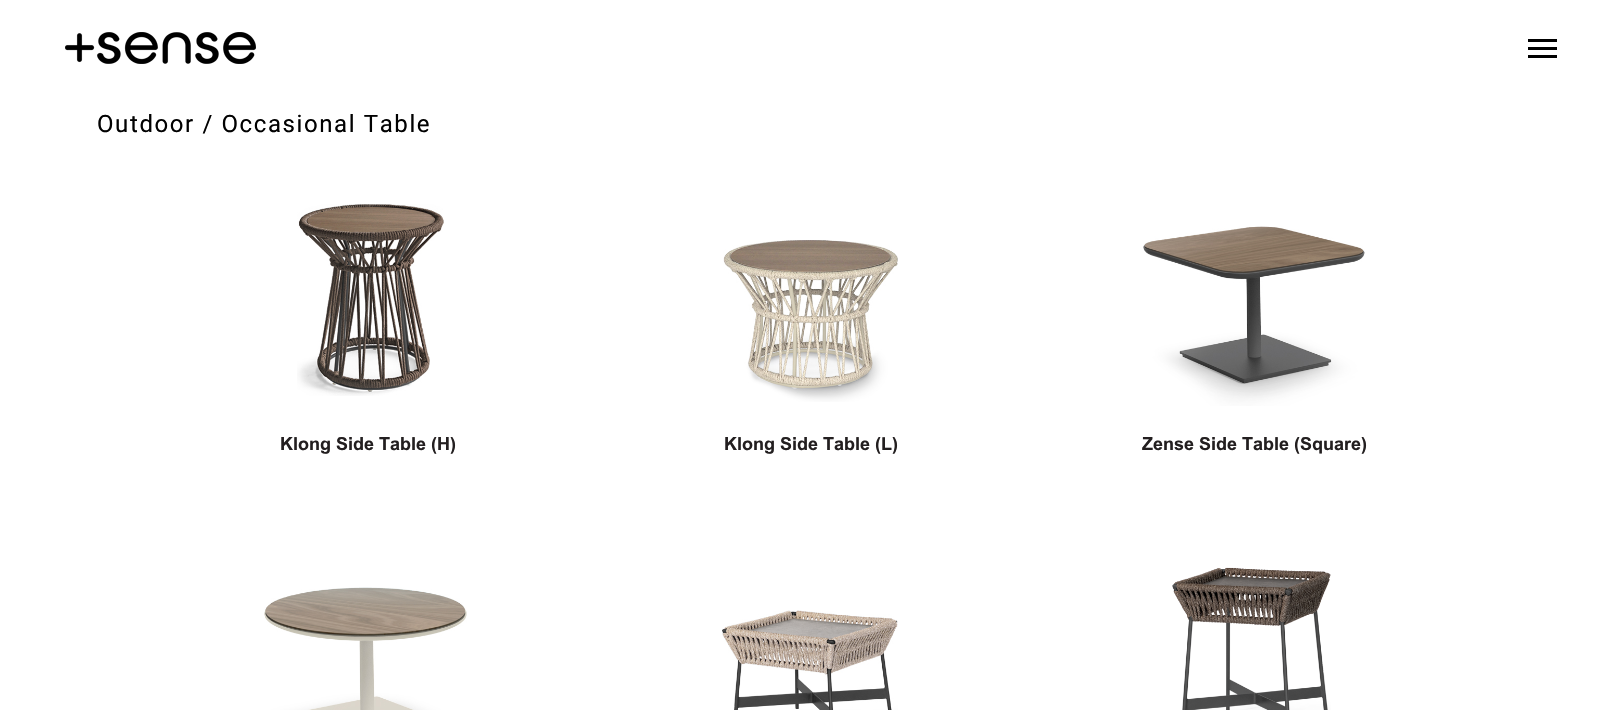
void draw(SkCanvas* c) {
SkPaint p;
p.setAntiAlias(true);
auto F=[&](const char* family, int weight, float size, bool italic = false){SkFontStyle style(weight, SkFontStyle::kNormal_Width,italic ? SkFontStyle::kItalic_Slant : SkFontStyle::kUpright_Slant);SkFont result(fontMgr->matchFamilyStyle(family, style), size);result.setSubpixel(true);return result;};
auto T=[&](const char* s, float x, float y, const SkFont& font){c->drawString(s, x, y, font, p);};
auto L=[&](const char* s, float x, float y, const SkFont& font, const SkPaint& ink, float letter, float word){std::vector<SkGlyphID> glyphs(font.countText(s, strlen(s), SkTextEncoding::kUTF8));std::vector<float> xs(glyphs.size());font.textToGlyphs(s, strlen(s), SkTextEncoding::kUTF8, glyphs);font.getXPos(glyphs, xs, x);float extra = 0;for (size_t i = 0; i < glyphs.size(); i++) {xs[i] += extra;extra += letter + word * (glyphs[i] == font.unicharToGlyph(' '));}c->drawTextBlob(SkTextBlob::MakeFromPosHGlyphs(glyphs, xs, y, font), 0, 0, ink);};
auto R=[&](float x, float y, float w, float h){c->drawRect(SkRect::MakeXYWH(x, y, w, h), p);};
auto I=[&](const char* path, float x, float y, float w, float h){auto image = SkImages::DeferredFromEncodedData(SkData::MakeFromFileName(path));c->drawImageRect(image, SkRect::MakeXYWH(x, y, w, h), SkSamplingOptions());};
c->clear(0xffffffff);
I("1.png",65,32,191,32);
p.setColor(0xff000000);
R(1528,39,29,3);
R(1528,47,29,3);
R(1528,55,29,3);
auto f1 = F("Roboto",400,24);
p.setColor(0xff010101);
L("Outdoor / Occasional Table",97,132,f1,p,1.6,0);
I("2.png",297,204,147,192);
auto f2 = F("Arial",700,18);
p.setColor(0xff231f20);
T("Klong Side Table (H)",280,450,f2);
I("3.png",723,240,175,162);
T("Klong Side Table (L)",724,450,f2);
I("4.png",1143,226,222,180);
T("Zense Side Table (Square)",1142,450,f2);
I("5.png",264,587,203,123);
I("6.png",722,610,176,100);
I("7.png",1172,567,159,143);
}
